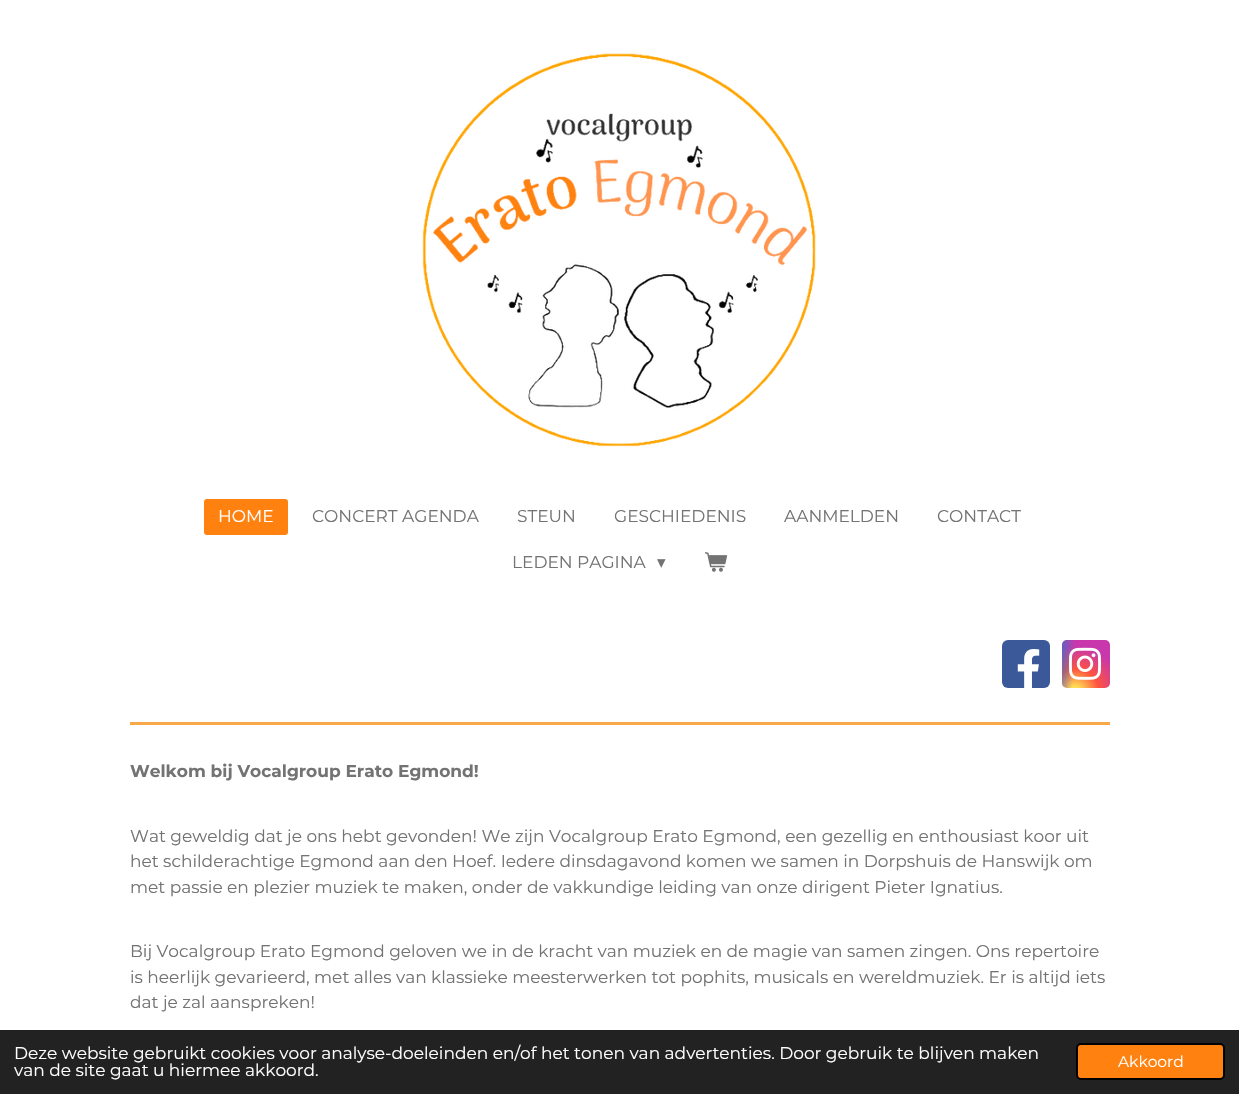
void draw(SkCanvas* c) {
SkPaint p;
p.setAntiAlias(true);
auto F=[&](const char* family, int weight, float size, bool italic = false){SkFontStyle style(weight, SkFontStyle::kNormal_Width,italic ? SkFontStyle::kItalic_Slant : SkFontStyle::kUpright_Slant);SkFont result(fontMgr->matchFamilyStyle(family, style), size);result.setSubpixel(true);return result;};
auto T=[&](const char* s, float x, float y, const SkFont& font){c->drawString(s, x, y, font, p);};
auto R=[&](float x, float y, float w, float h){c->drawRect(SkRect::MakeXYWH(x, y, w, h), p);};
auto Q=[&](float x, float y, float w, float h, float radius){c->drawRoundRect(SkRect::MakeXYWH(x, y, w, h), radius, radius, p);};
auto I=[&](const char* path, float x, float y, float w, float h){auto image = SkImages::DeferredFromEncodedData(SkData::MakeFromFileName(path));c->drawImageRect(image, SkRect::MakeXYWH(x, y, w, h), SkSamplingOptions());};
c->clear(0xffffffff);
I("1.png",422,52,394,395);
p.setColor(0xffff8210);
Q(204,499,84,36,3);
auto f1 = F("Montserrat",400,17);
p.setColor(0xffffffff);
T("HOME",218,522,f1);
p.setColor(0xff737373);
T("CONCERT AGENDA",312,522,f1);
T("STEUN",517,522,f1);
T("GESCHIEDENIS",614,522,f1);
T("AANMELDEN",784,522,f1);
T("CONTACT",937,522,f1);
T("LEDEN PAGINA",512,568,f1);
auto f2 = F("DejaVu Sans",400,17);
T("▾",657,568,f2);
I("2.png",705,552,23,20);
p.setColor(0xff3b5998);
Q(1002,640,48,48,6);
I("3.png",1017,649,23,39);
{
const SkColor colors[] = {0xffffdd55,0xffffdd55,0xffff543e,0xffc837ab};
const float stops[] = {0,.1,.5,1};
SkMatrix m = SkMatrix::Translate(1075,691).preScale(47,44);
p.setShader(SkGradientShader::MakeRadial({0, 0}, 1, colors, stops, 4, SkTileMode::kClamp, 0, &m));
p.setAlpha(255);
}
Q(1062,640,48,48,5);
{
const SkColor colors[] = {0xff3771c8,0xff3771c8,0x003771c8};
const float stops[] = {0,.13,1};
SkMatrix m = SkMatrix::Translate(1054,643).preScale(21,86);
p.setShader(SkGradientShader::MakeRadial({0, 0}, 1, colors, stops, 3, SkTileMode::kClamp, 0, &m));
p.setAlpha(255);
}
Q(1062,640,48,48,5);
I("4.png",1069,647,32,33);
p.setShader(nullptr);
p.setColor(0xfffaa94a);
R(130,722,980,3);
auto f3 = F("Montserrat",700,17);
p.setColor(0xff737373);
T("Welkom bij Vocalgroup Erato Egmond!",130,777,f3);
T("Wat geweldig dat je ons hebt gevonden! We zijn Vocalgroup Erato Egmond, een gezellig en enthousiast koor uit",130,842,f1);
T("het schilderachtige Egmond aan den Hoef. Iedere dinsdagavond komen we samen in Dorpshuis de Hanswijk om",130,867,f1);
T("met passie en plezier muziek te maken, onder de vakkundige leiding van onze dirigent Pieter Ignatius.",130,893,f1);
T("Bij Vocalgroup Erato Egmond geloven we in de kracht van muziek en de magie van samen zingen. Ons repertoire",130,957,f1);
T("is heerlijk gevarieerd, met alles van klassieke meesterwerken tot pophits, musicals en wereldmuziek. Er is altijd iets",130,983,f1);
T("dat je zal aanspreken!",130,1008,f1);
p.setColor(0xff222222);
R(0,1030,1239,64);
p.setColor(0xffffffff);
T("Deze website gebruikt cookies voor analyse-doeleinden en/of het tonen van advertenties. Door gebruik te blijven maken",14,1059,f1);
T("van de site gaat u hiermee akkoord.",14,1076,f1);
p.setColor(0xffff8210);
c->drawRoundRect(SkRect::MakeXYWH(1077,1044,147,35),4,4,p);
p.setStroke(true);
p.setStrokeWidth(2);
p.setColor(0xff000000);
c->drawRoundRect(SkRect::MakeXYWH(1077,1044,147,35),4,4,p);
auto f4 = F("Montserrat",400,15.5);
p.setStroke(false);
p.setColor(0xffffffff);
T("Akkoord",1118,1067,f4);
}
